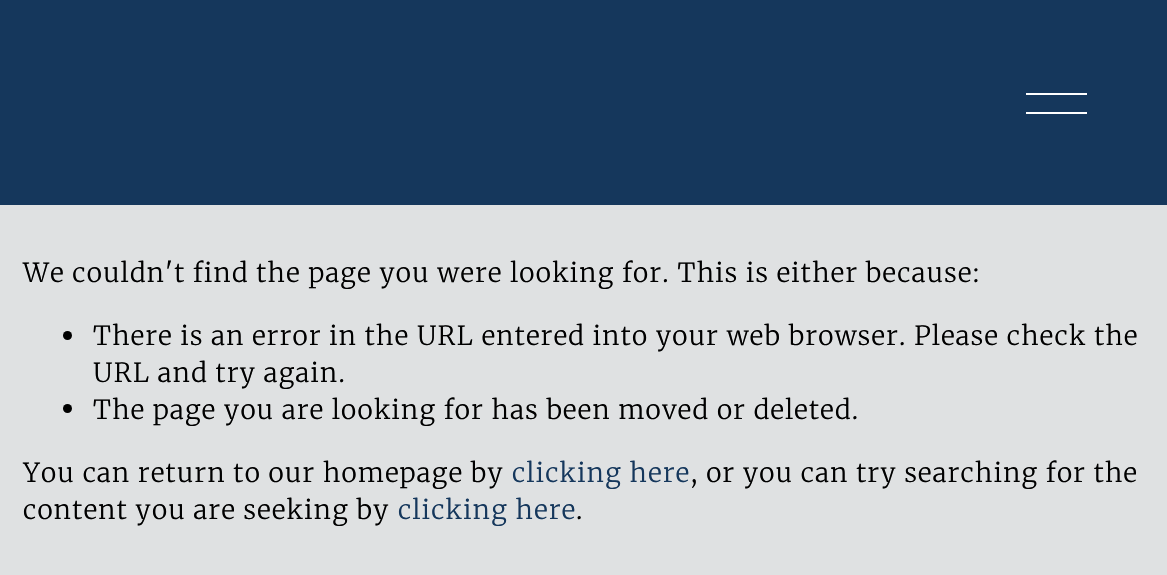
void draw(SkCanvas* c) {
SkPaint p;
p.setAntiAlias(true);
auto F=[&](const char* family, int weight, float size, bool italic = false){SkFontStyle style(weight, SkFontStyle::kNormal_Width,italic ? SkFontStyle::kItalic_Slant : SkFontStyle::kUpright_Slant);SkFont result(fontMgr->matchFamilyStyle(family, style), size);result.setSubpixel(true);return result;};
auto L=[&](const char* s, float x, float y, const SkFont& font, const SkPaint& ink, float letter, float word){std::vector<SkGlyphID> glyphs(font.countText(s, strlen(s), SkTextEncoding::kUTF8));std::vector<float> xs(glyphs.size());font.textToGlyphs(s, strlen(s), SkTextEncoding::kUTF8, glyphs);font.getXPos(glyphs, xs, x);float extra = 0;for (size_t i = 0; i < glyphs.size(); i++) {xs[i] += extra;extra += letter + word * (glyphs[i] == font.unicharToGlyph(' '));}c->drawTextBlob(SkTextBlob::MakeFromPosHGlyphs(glyphs, xs, y, font), 0, 0, ink);};
auto R=[&](float x, float y, float w, float h){c->drawRect(SkRect::MakeXYWH(x, y, w, h), p);};
c->clear(0xffdfe1e2);
p.setColor(0xff15375c);
R(0,0,1167,205);
p.setColor(0xffffffff);
R(1026,93,61,2);
R(1026,112,61,2);
auto f1 = F("Merriweather",300,26.25);
p.setColor(0xff000000);
L("We couldn't find the page you were looking for. This is either because:",23,282,f1,p,1.3,0);
c->drawCircle(67.5,335.5,4.5,p);
L("There is an error in the URL entered into your web browser. Please check the",93,345,f1,p,1.3,0);
L("URL and try again.",93,382,f1,p,1.3,0);
c->drawCircle(67.5,408.5,4.5,p);
L("The page you are looking for has been moved or deleted.",93,419,f1,p,1.3,0);
L("You can return to our homepage by",23,482,f1,p,1.3,0);
p.setColor(0xff15375c);
L("clicking here",512,482,f1,p,1.3,0);
p.setColor(0xff000000);
L(", or you can try searching for the",691,482,f1,p,1.3,0);
L("content you are seeking by",23,519,f1,p,1.3,0);
p.setColor(0xff15375c);
L("clicking here",398,519,f1,p,1.3,0);
p.setColor(0xff000000);
L(".",576,519,f1,p,1.3,0);
}
